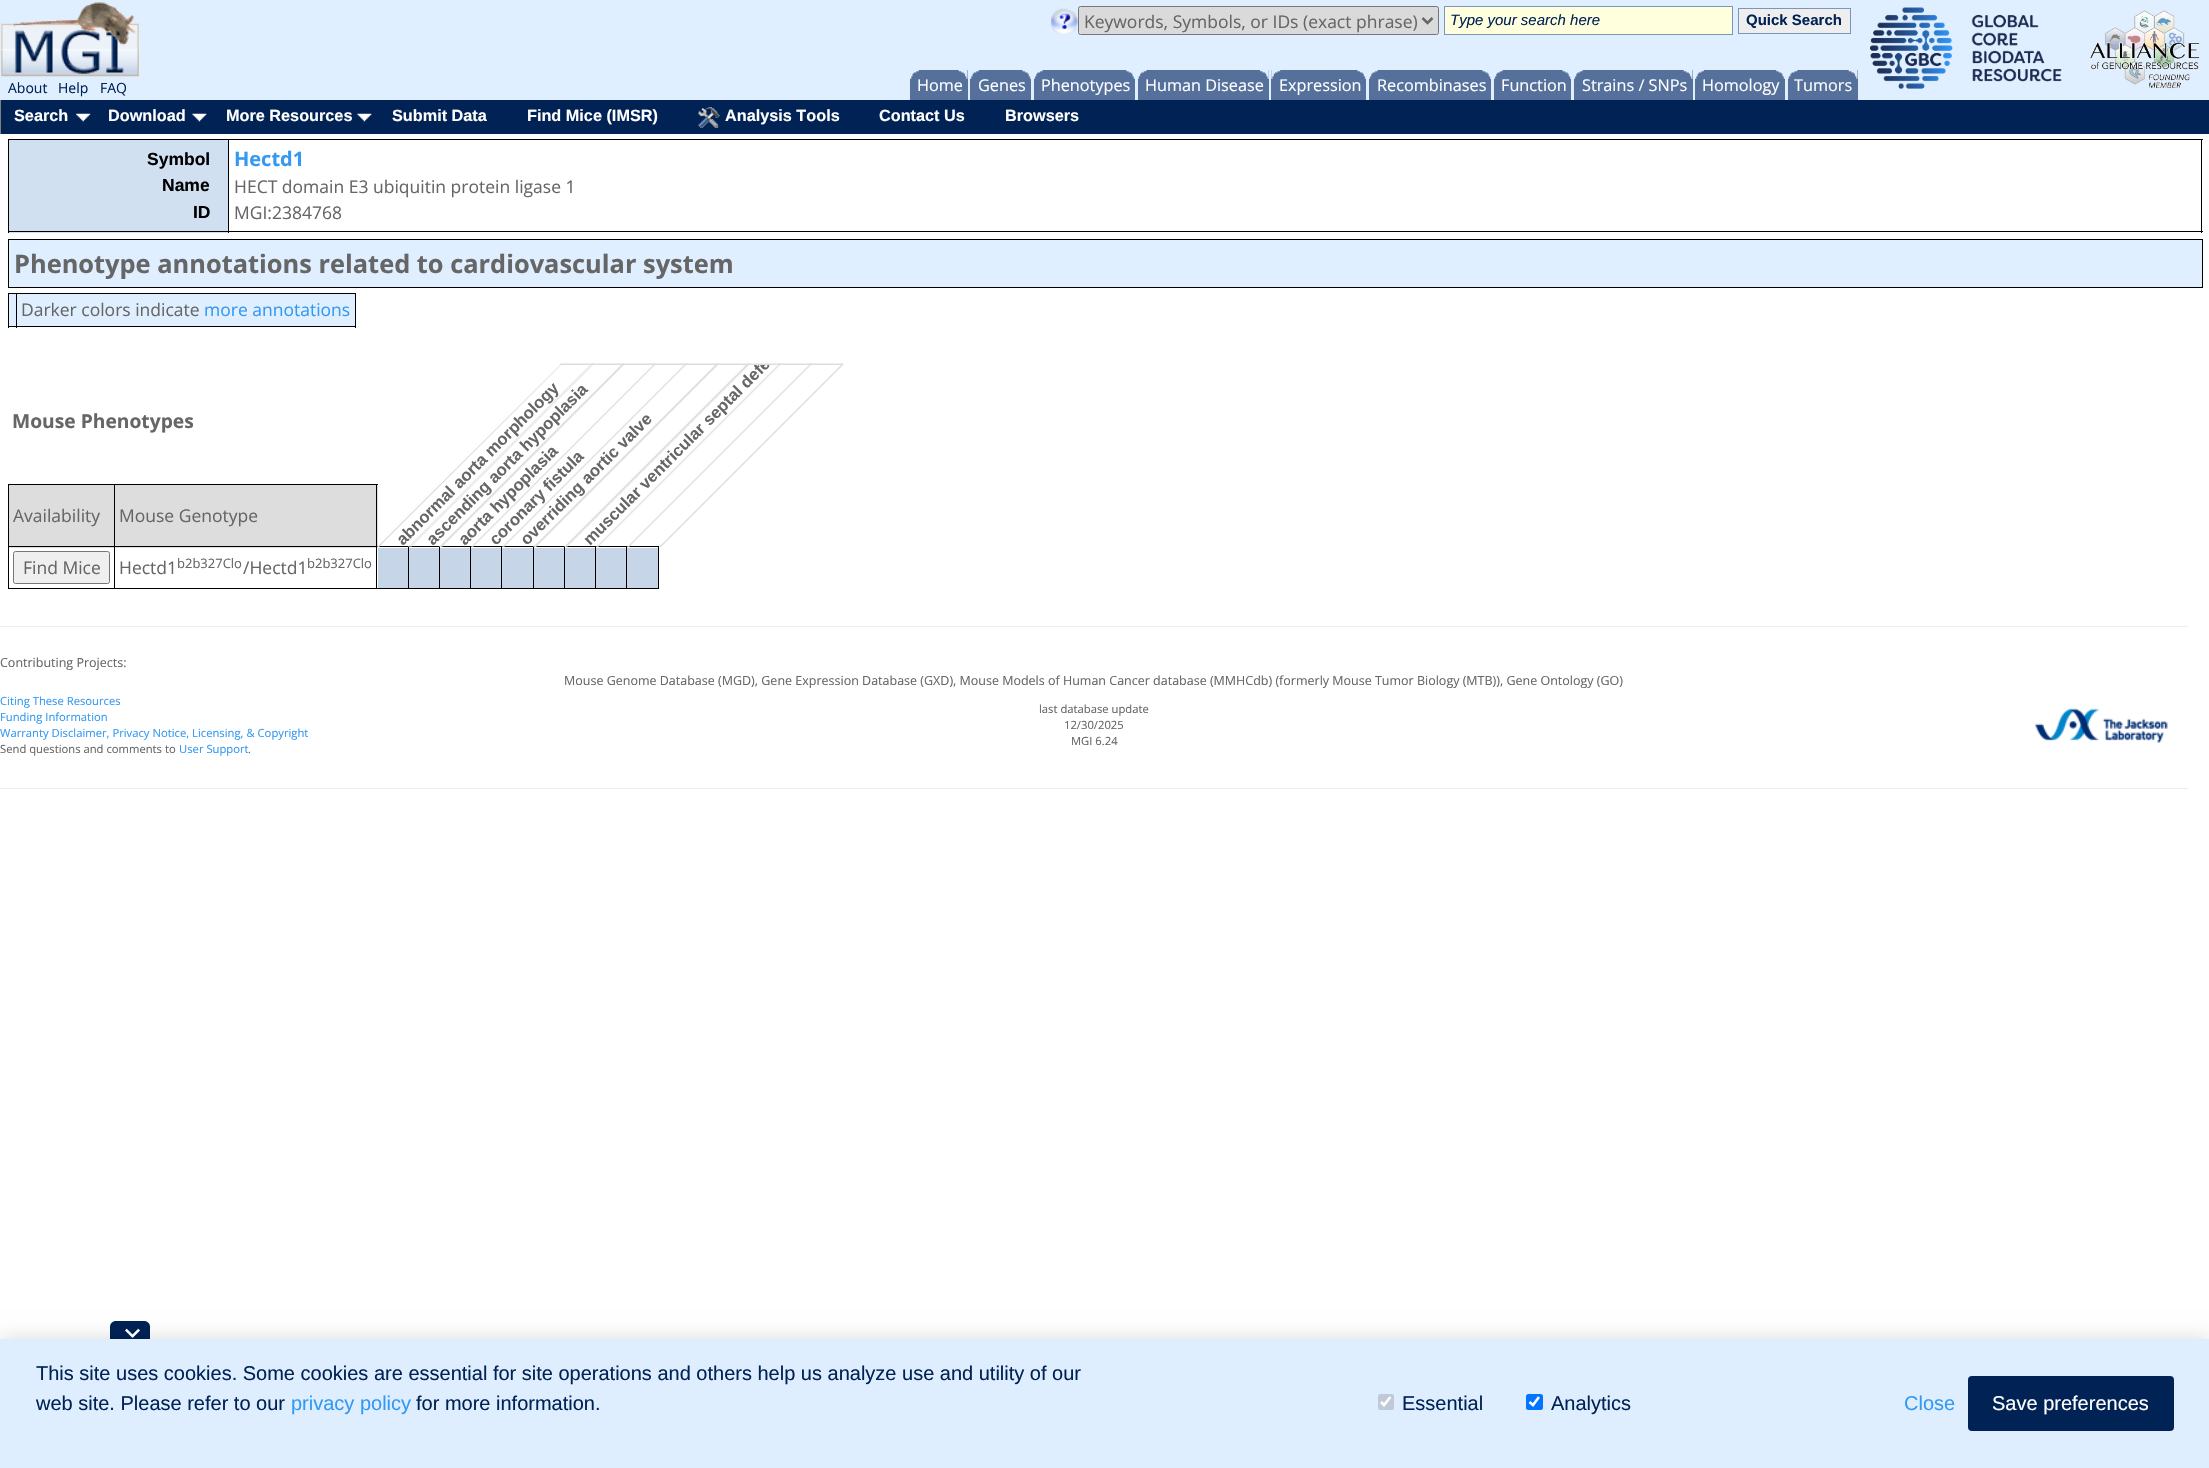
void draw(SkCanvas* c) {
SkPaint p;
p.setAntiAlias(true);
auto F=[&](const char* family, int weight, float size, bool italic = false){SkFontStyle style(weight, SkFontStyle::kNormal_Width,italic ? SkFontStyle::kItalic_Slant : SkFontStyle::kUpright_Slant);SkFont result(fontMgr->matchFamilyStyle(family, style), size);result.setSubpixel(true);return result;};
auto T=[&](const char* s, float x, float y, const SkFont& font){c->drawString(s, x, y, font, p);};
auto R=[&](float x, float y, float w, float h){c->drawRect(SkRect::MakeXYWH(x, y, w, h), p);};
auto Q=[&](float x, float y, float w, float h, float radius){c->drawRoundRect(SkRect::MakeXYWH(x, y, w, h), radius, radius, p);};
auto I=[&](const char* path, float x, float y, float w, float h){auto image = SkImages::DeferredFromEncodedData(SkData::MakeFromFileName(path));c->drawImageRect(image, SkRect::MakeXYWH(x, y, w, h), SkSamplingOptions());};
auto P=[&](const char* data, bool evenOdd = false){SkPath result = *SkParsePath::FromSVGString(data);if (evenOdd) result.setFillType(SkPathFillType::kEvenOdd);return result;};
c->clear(0xffffffff);
p.setColor(0xffdfefff);
R(0,0,2209,100);
I("1.png",1051,8,27,26);
p.setColor(0xffdadada);
c->drawRoundRect(SkRect::MakeXYWH(1078.5,6.5,360,28),2,2,p);
p.setStroke(true);
p.setStrokeWidth(1);
p.setColor(0xff767676);
c->drawRoundRect(SkRect::MakeXYWH(1078.5,6.5,360,28),2,2,p);
p.setStrokeWidth(2.5);
p.setColor(0xff666666);
c->drawPath(P("M1422.5 18l5 5l5-5"),p);
auto f1 = F("Open Sans",400,17.5);
p.setStroke(false);
T("Keywords, Symbols, or IDs (exact phrase)",1084,28,f1);
p.setColor(0xffffffdd);
c->drawRect(SkRect::MakeXYWH(1444.5,6.5,288,28),p);
p.setStroke(true);
p.setStrokeWidth(1);
p.setColor(0xff7d95b9);
c->drawRect(SkRect::MakeXYWH(1444.5,6.5,288,28),p);
auto f2 = F("Liberation Sans",400,15,true);
p.setStroke(false);
p.setColor(0xff002255);
T("Type your search here",1450,25,f2);
p.setColor(0xffeeeeee);
c->drawRect(SkRect::MakeXYWH(1738.5,8.5,112,25),p);
p.setStroke(true);
p.setColor(0xff7d95b9);
c->drawRect(SkRect::MakeXYWH(1738.5,8.5,112,25),p);
auto f3 = F("Liberation Sans",700,15);
p.setStroke(false);
p.setColor(0xff002255);
T("Quick Search",1746,25,f3);
I("2.png",1870,7,192,82);
I("3.png",2089,10,111,79);
I("4.png",1,2,138,75);
auto f4 = F("Open Sans",400,14);
T("About",8,93,f4);
T("Help",58,93,f4);
T("FAQ",100,93,f4);
p.setColor(0xff54709b);
R(910,70,58,30);
I("5.png",910,70,9,9);
I("6.png",958,70,10,9);
auto f5 = F("Open Sans",400,16.25);
p.setColor(0xffffffff);
T("Home",917,91,f5);
p.setColor(0xff54709b);
R(970,70,61,30);
I("7.png",970,70,9,9);
I("8.png",1022,70,9,9);
p.setColor(0xffffffff);
T("Genes",978,91,f5);
p.setColor(0xff54709b);
R(1034,70,101,30);
I("9.png",1034,70,9,9);
I("10.png",1126,70,9,9);
p.setColor(0xffffffff);
T("Phenotypes",1041,91,f5);
p.setColor(0xff54709b);
R(1138,70,131,30);
I("11.png",1138,70,9,9);
I("12.png",1259,70,10,9);
p.setColor(0xffffffff);
T("Human Disease",1145,91,f5);
p.setColor(0xff54709b);
R(1271,70,95,30);
I("13.png",1271,70,10,9);
I("14.png",1357,70,9,9);
p.setColor(0xffffffff);
T("Expression",1279,91,f5);
p.setColor(0xff54709b);
R(1369,70,122,30);
I("15.png",1369,70,9,9);
I("16.png",1482,70,9,9);
p.setColor(0xffffffff);
T("Recombinases",1377,91,f5);
p.setColor(0xff54709b);
R(1494,70,77,30);
I("9.png",1494,70,9,9);
I("14.png",1562,70,9,9);
p.setColor(0xffffffff);
T("Function",1501,91,f5);
p.setColor(0xff54709b);
R(1574,70,119,30);
I("9.png",1574,70,9,9);
I("6.png",1683,70,10,9);
p.setColor(0xffffffff);
T("Strains / SNPs",1582,91,f5);
p.setColor(0xff54709b);
R(1695,70,90,30);
I("7.png",1695,70,9,9);
I("17.png",1776,70,9,9);
p.setColor(0xffffffff);
T("Homology",1702,91,f5);
p.setColor(0xff54709b);
R(1788,70,70,30);
I("18.png",1788,70,10,9);
I("6.png",1848,70,10,9);
p.setColor(0xffffffff);
T("Tumors",1794,91,f5);
p.setColor(0xff002255);
R(1,100,2208,34);
p.setColor(0xff808080);
R(0,100,1,34);
I("19.png",76,113,15,9);
auto f6 = F("Liberation Sans",700,16.25);
p.setColor(0xffffffff);
T("Search",14,121,f6);
I("20.png",192,113,15,9);
T("Download",108,121,f6);
I("21.png",357,113,15,9);
T("More Resources",226,121,f6);
T("Submit Data",392,121,f6);
T("Find Mice (IMSR)",527,121,f6);
I("22.png",698,107,22,21);
T("Analysis Tools",725,121,f6);
T("Contact Us",879,121,f6);
T("Browsers",1005,121,f6);
p.setColor(0xff000000);
R(8,139,2195,1);
R(2201,139,1,94);
p.setColor(0xffd0e0f0);
R(9,140,219,93);
p.setColor(0xff000000);
R(8,231,2195,1);
R(8,139,1,94);
auto f7 = F("Liberation Sans",700,17.5);
p.setColor(0xff000001);
T("Symbol",147,165,f7);
T("Name",162,191,f7);
T("ID",193,218,f7);
p.setColor(0xff000000);
R(228,139,1,94);
auto f8 = F("Open Sans",700,20);
p.setColor(0xff3399f3);
T("Hectd1",234,166,f8);
p.setColor(0xff666666);
T("HECT domain E3 ubiquitin protein ligase 1",234,193,f1);
T("MGI:2384768",234,219,f1);
p.setColor(0xffdfefff);
c->drawRect(SkRect::MakeXYWH(8.5,239.5,2194,48),p);
p.setStroke(true);
p.setColor(0xff000000);
c->drawRect(SkRect::MakeXYWH(8.5,239.5,2194,48),p);
auto f9 = F("Open Sans",700,25.4);
p.setStroke(false);
p.setColor(0xff666666);
T("Phenotype annotations related to cardiovascular system",14,273,f9);
p.setColor(0xffdfefff);
R(9,294,346,32);
p.setColor(0xff000000);
R(16,293,340,1);
R(355,293,1,35);
R(16,326,340,1);
R(16,293,1,35);
R(8,293,10,1);
R(8,326,10,1);
R(8,293,1,35);
p.setColor(0xff666666);
T("Darker colors indicate",21,316,f1);
p.setColor(0xff3399f3);
T("more annotations",204,316,f1);
p.setColor(0xffdddddd);
c->drawPath(P("M560.5 363.5h34l-1.5 1.5h-33.5z"),p);
p.setColor(0xff000000);
R(626,546,33,1);
p.setColor(0xffc6d6e8);
R(596,548,62,40);
p.setColor(0xff000000);
R(658,546,1,43);
R(626,588,33,1);
R(626,546,1,43);
R(595,546,33,1);
R(595,588,33,1);
R(595,546,1,43);
R(564,546,32,1);
R(564,588,32,1);
R(564,546,1,43);
R(533,546,32,1);
R(533,588,32,1);
R(533,546,1,43);
R(501,546,33,1);
p.setColor(0xffc6d6e8);
R(471,548,62,40);
p.setColor(0xff000000);
R(501,588,33,1);
R(501,546,1,43);
R(470,546,33,1);
R(470,588,33,1);
R(470,546,1,43);
R(439,546,32,1);
R(439,588,32,1);
R(439,546,1,43);
R(408,546,32,1);
p.setColor(0xffdddddd);
c->drawPath(P("M593 364h1l-183 183h-1z"),p);
c->drawPath(P("M591 363.5h34l-1.5 1.5h-33.5z"),p);
R(115,485,263,63);
p.setColor(0xff000000);
R(114,484,264,1);
R(408,588,32,1);
R(408,546,1,43);
R(376,546,33,1);
R(376,588,33,1);
R(376,546,1,43);
R(114,546,264,1);
p.setColor(0xffdddddd);
c->drawPath(P("M561 364h1l-183 183h-2z"),p);
auto f10 = F("Liberation Sans",700,16.7);
p.setColor(0xff666666);
c->save();
c->rotate(-45,403,546);
T("abnormal aorta morphology",403,546,f10);
c->restore();
p.setColor(0xffdddddd);
c->drawPath(P("M624 364h1l-183 183h-1z"),p);
c->drawPath(P("M622.5 363.5h33.5l-1 1.5h-34z"),p);
c->drawPath(P("M591 364h1l-183 183h-1z"),p);
p.setColor(0xff666666);
c->save();
c->rotate(-45,433,546);
T("ascending aorta hypoplasia",433,546,f10);
c->restore();
p.setColor(0xffdddddd);
c->drawPath(P("M655 364h1l-183 183h-1z"),p);
c->drawPath(P("M653.5 363.5h34l-1.5 1.5h-33.5z"),p);
c->drawPath(P("M622 364h2l-183 183h-2z"),p);
p.setColor(0xff666666);
c->save();
c->rotate(-45,465,546);
T("aorta hypoplasia",465,546,f10);
c->restore();
p.setColor(0xffdddddd);
c->drawPath(P("M686 364h1l-183 183h-1z"),p);
c->drawPath(P("M685 363.5h33.5l-1 1.5h-34z"),p);
c->drawPath(P("M654 364h1l-183 183h-1z"),p);
p.setColor(0xff666666);
c->save();
c->rotate(-45,496,546);
T("coronary fistula",496,546,f10);
c->restore();
p.setColor(0xffdddddd);
c->drawPath(P("M717 364h2l-183 183h-2z"),p);
c->drawPath(P("M716 363.5h34l-1.5 1.5h-33.5z"),p);
c->drawPath(P("M685 364h1l-183 183h-1z"),p);
p.setColor(0xff666666);
c->save();
c->rotate(-45,527,546);
T("overriding aortic valve",527,546,f10);
c->restore();
p.setColor(0xffdddddd);
c->drawPath(P("M749 364h1l-183 183h-1z"),p);
c->drawPath(P("M716 364h1l-183 183h-1z"),p);
c->drawPath(P("M747.5 363.5h33.5l-1 1.5h-34z"),p);
c->drawPath(P("M780 364h1l-183 183h-1z"),p);
c->drawPath(P("M778.5 363.5h34l-1.5 1.5h-33.5z"),p);
c->drawPath(P("M747 364h2l-183 183h-2z"),p);
c->save();
c->clipPath(P("M747.5 365h31l-181.5 182h-31.5z"),true);
p.setColor(0xff666666);
c->save();
c->rotate(-45,590,546);
T("muscular ventricular septal defect",590,546,f10);
c->restore();
c->restore();
p.setColor(0xffdddddd);
c->drawPath(P("M811 364h1l-183 183h-1z"),p);
c->drawPath(P("M779 364h1l-183 183h-1z"),p);
c->drawPath(P("M810 363.5h33.5l-1 1.5h-34z"),p);
c->drawPath(P("M842 364h2l-183 183h-2z"),p);
c->drawPath(P("M810 364h1l-183 183h-1z"),p);
auto f11 = F("Open Sans",700,19.25);
p.setColor(0xff666666);
T("Mouse Phenotypes",12,428,f11);
p.setColor(0xffdddddd);
R(9,485,105,63);
p.setColor(0xff000000);
R(114,588,264,1);
R(114,546,1,43);
R(8,546,107,1);
R(114,484,1,64);
R(8,484,107,1);
R(8,588,107,1);
R(8,546,1,43);
R(8,484,1,64);
p.setColor(0xff666666);
T("Availability",13,522,f1);
p.setColor(0xff000000);
R(376,484,1,64);
p.setColor(0xff666666);
T("Mouse Genotype",119,522,f1);
p.setColor(0xffc6d6e8);
R(378,548,30,40);
R(409,548,30,40);
R(440,548,30,40);
R(534,548,30,40);
R(565,548,30,40);
p.setColor(0xffefefef);
c->drawRoundRect(SkRect::MakeXYWH(13.5,551.5,96,32),2,2,p);
p.setStroke(true);
p.setColor(0xff767676);
c->drawRoundRect(SkRect::MakeXYWH(13.5,551.5,96,32),2,2,p);
p.setStroke(false);
p.setColor(0xff666666);
T("Find Mice",23,574,f1);
T("Hectd1",119,574,f1);
auto f12 = F("Open Sans",400,13);
T("b2b327Clo",177,568,f12);
T("/Hectd1",243,574,f1);
T("b2b327Clo",307,568,f12);
p.setColor(0xffeeeeee);
R(0,626,2188,1);
auto f13 = F("Open Sans",400,12.5);
p.setColor(0xff666666);
T("Contributing Projects:",0,667,f13);
T("Mouse Genome Database (MGD), Gene Expression Database (GXD), Mouse Models of Human Cancer database (MMHCdb) (formerly Mouse Tumor Biology (MTB)), Gene Ontology (GO)",564,685,f13);
auto f14 = F("Open Sans",400,11.25);
p.setColor(0xff3399f3);
T("Citing These Resources",0,705,f14);
T("Funding Information",0,721,f14);
T("Warranty Disclaimer, Privacy Notice, Licensing, & Copyright",0,737,f14);
p.setColor(0xff666666);
T("Send questions and comments to",0,753,f14);
p.setColor(0xff3399f3);
T("User Support",179,753,f14);
p.setColor(0xff666666);
T(".",248,753,f14);
T("last database update",1039,713,f14);
T("12/30/2025",1064,729,f14);
T("MGI 6.24",1071,745,f14);
I("23.png",2034,708,134,35);
p.setColor(0xffeeeeee);
R(0,788,2188,1);
p.setColor(0xff002255);
c->drawPath(P("M116 1321h28c3.5 0 6 2.5 6 6v12h-40v-12c0-3.5 2.5-6 6-6z"),p);
p.setColor(0x26000000);
p.setMaskFilter(SkMaskFilter::MakeBlur(kNormal_SkBlurStyle, 10));
c->drawRect(SkRect::MakeXYWH(0,1339,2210,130),p);
p.setMaskFilter(nullptr);
I("24.png",125,1328,15,10);
p.setColor(0xffdeeeff);
R(0,1339,2209,129);
auto f15 = F("Liberation Sans",400,20);
p.setColor(0xff002255);
T("This site uses cookies. Some cookies are essential for site operations and others help us analyze use and utility of our",36,1380,f15);
T("web site. Please refer to our",36,1410,f15);
p.setColor(0xff3399f3);
T("privacy policy",291,1410,f15);
p.setColor(0xff002255);
T("for more information.",416,1410,f15);
p.setColor(0xffbfcad6);
Q(1378,1394,16,16,2.5);
p.setStroke(true);
p.setStrokeWidth(2.6);
p.setColor(0xffffffff);
c->drawPath(P("M1381 1402l3 3l6.5-8"),p);
p.setStroke(false);
p.setColor(0xff002255);
T("Essential",1402,1410,f15);
p.setColor(0xff0075ff);
Q(1526,1394,17,16,2.5);
p.setStroke(true);
p.setColor(0xffffffff);
c->drawPath(P("M1529.5 1402l3.5 3l6-8"),p);
p.setStroke(false);
p.setColor(0xff002255);
T("Analytics",1551,1410,f15);
p.setColor(0xff3399f3);
T("Close",1904,1410,f15);
p.setColor(0xff002255);
Q(1968,1376,206,55,4);
p.setColor(0xffffffff);
T("Save preferences",1992,1410,f15);
}
